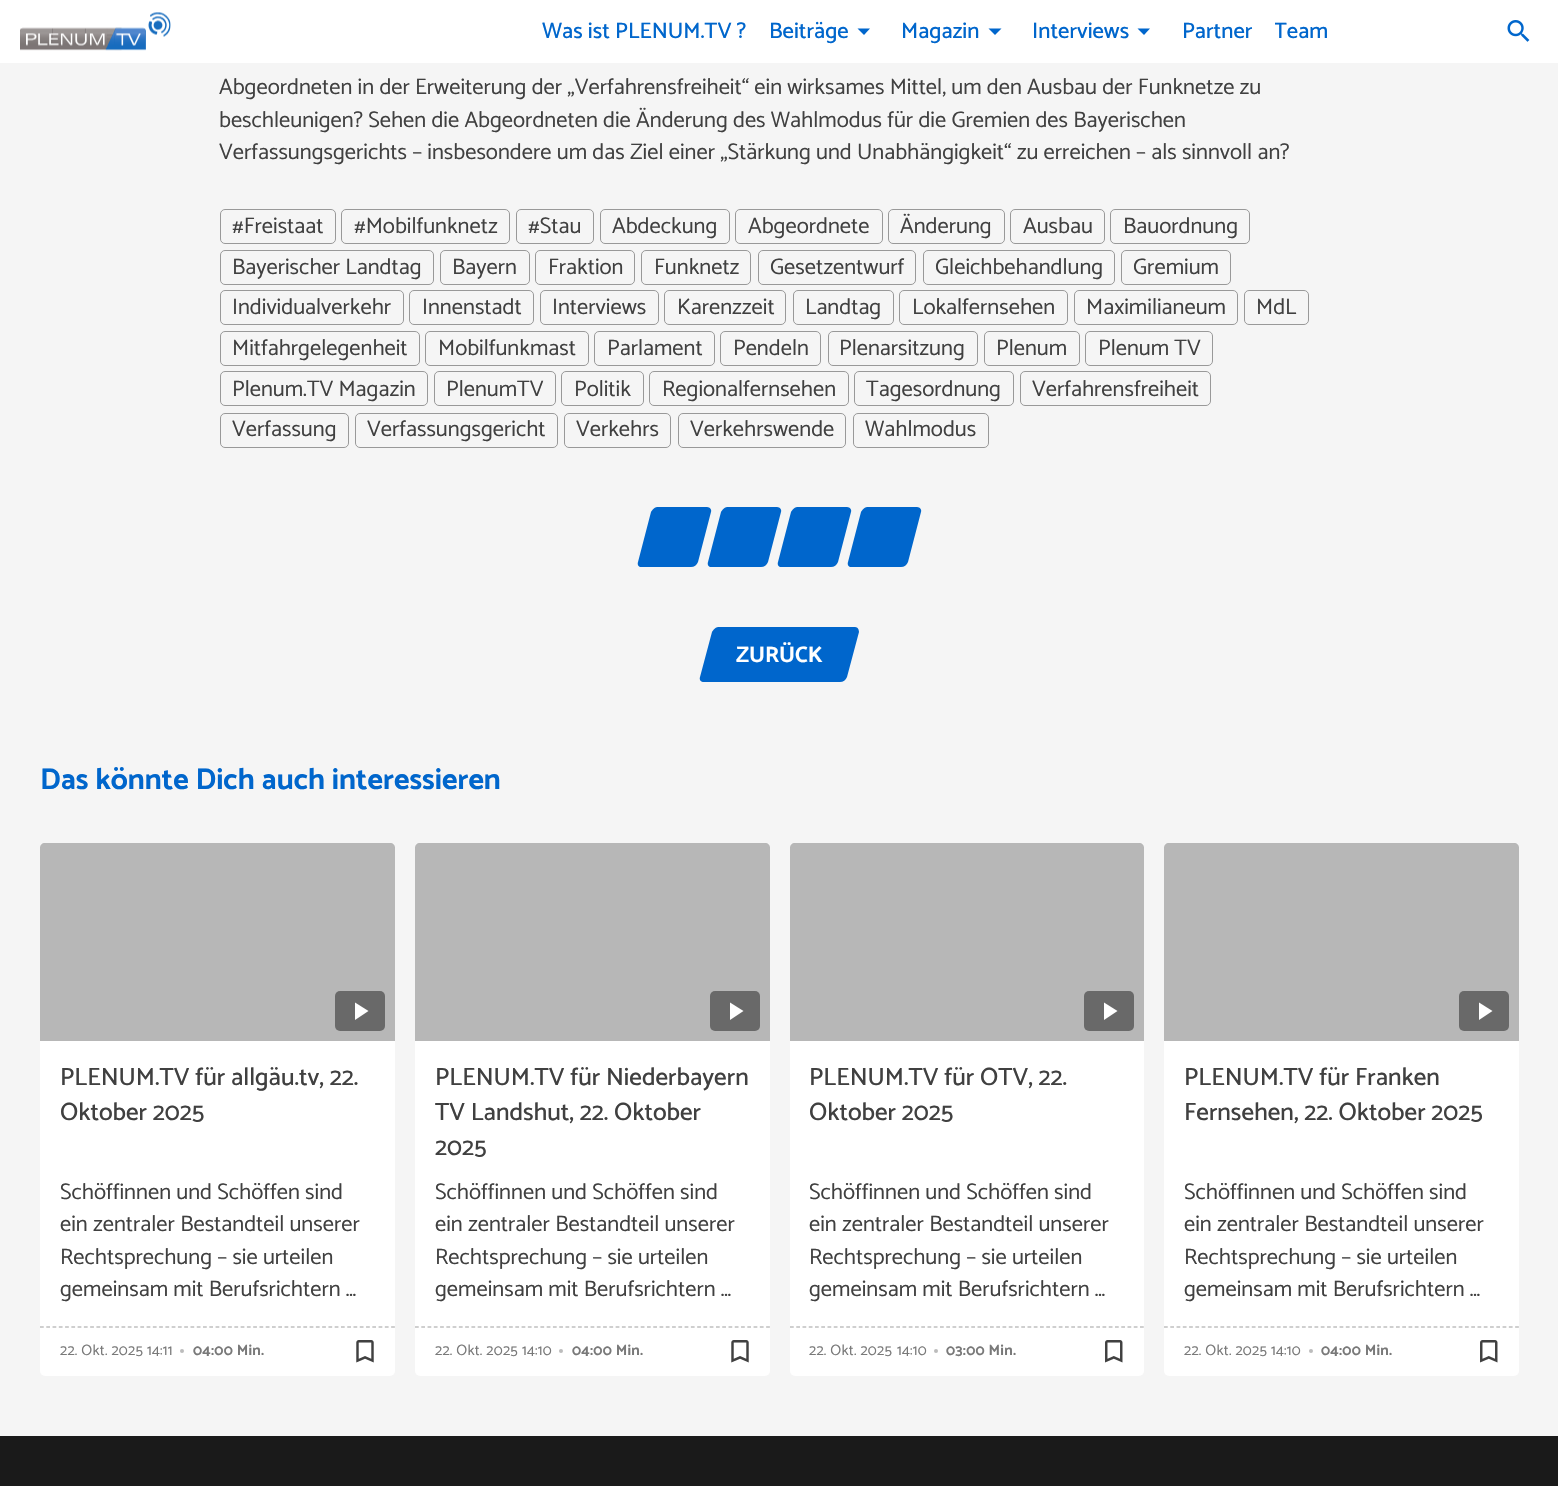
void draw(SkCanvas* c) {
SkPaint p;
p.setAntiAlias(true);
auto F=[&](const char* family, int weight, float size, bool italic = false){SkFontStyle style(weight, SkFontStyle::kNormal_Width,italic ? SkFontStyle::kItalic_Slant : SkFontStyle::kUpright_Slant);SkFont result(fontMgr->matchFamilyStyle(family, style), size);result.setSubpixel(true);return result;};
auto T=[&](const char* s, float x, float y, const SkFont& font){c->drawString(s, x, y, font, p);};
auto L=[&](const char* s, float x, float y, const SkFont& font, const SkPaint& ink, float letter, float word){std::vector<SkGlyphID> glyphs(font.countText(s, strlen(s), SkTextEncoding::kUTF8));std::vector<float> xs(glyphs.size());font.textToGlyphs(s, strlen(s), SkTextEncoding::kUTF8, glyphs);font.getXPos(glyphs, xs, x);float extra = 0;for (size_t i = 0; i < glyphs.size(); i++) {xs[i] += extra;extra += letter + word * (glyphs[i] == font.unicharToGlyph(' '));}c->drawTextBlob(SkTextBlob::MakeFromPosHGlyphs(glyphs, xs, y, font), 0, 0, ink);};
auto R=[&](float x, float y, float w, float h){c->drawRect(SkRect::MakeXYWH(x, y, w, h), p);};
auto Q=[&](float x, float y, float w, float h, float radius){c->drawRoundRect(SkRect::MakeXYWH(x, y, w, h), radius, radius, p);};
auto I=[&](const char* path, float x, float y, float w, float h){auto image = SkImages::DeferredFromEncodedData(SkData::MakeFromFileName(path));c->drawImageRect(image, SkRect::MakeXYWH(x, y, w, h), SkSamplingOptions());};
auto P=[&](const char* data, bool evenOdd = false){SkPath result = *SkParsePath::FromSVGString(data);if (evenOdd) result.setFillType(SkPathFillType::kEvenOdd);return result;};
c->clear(0xfff5f5f5);
p.setColor(0xffffffff);
R(0,0,1558,63);
I("1.png",20,12,151,39);
auto f1 = F("Catamaran",500,22.5);
p.setColor(0xff0066cc);
T("Was ist PLENUM.TV ?",542,38,f1);
T("Beiträge",769,38,f1);
c->drawPath(P("M857.5 28.5h12.5l-6 6.5z"),p);
T("Magazin",901,38,f1);
c->drawPath(P("M988.5 28.5h13l-6.5 6.5z"),p);
T("Interviews",1032,38,f1);
c->drawPath(P("M1137.5 28.5h12.5l-6 6.5z"),p);
T("Partner",1182,38,f1);
c->save();
c->clipRect(SkRect::MakeXYWH(1275,15,54,33));
T("Team",1274,38,f1);
c->restore();
I("2.png",1507,20,23,22);
auto f2 = F("Catamaran",400,22.5);
p.setColor(0xff404040);
T("Abgeordneten in der Erweiterung der „Verfahrensfreiheit“ ein wirksames Mittel, um den Ausbau der Funknetze zu",219,94,f2);
T("beschleunigen? Sehen die Abgeordneten die Änderung des Wahlmodus für die Gremien des Bayerischen",219,127,f2);
T("Verfassungsgerichts – insbesondere um das Ziel einer „Stärkung und Unabhängigkeit“ zu erreichen – als sinnvoll an?",219,159,f2);
p.setStroke(true);
p.setStrokeWidth(1);
p.setColor(0xff999999);
c->drawRoundRect(SkRect::MakeXYWH(220.5,209.5,115,34),4.5,4.5,p);
p.setStroke(false);
p.setColor(0xff404040);
T("#Freistaat",232,233,f2);
p.setStroke(true);
p.setColor(0xff999999);
c->drawRoundRect(SkRect::MakeXYWH(341.5,209.5,168,34),4.5,4.5,p);
p.setStroke(false);
p.setColor(0xff404040);
T("#Mobilfunknetz",354,233,f2);
p.setStroke(true);
p.setColor(0xff999999);
c->drawRoundRect(SkRect::MakeXYWH(516.5,209.5,77,34),4.5,4.5,p);
p.setStroke(false);
p.setColor(0xff404040);
T("#Stau",528,233,f2);
p.setStroke(true);
p.setColor(0xff999999);
c->drawRoundRect(SkRect::MakeXYWH(600.5,209.5,129,34),4.5,4.5,p);
p.setStroke(false);
p.setColor(0xff404040);
T("Abdeckung",612,233,f2);
p.setStroke(true);
p.setColor(0xff999999);
c->drawRoundRect(SkRect::MakeXYWH(735.5,209.5,147,34),4.5,4.5,p);
p.setStroke(false);
p.setColor(0xff404040);
T("Abgeordnete",748,233,f2);
p.setStroke(true);
p.setColor(0xff999999);
c->drawRoundRect(SkRect::MakeXYWH(888.5,209.5,116,34),4.5,4.5,p);
p.setStroke(false);
p.setColor(0xff404040);
T("Änderung",900,233,f2);
p.setStroke(true);
p.setColor(0xff999999);
c->drawRoundRect(SkRect::MakeXYWH(1010.5,209.5,94,34),4.5,4.5,p);
p.setStroke(false);
p.setColor(0xff404040);
T("Ausbau",1023,233,f2);
p.setStroke(true);
p.setColor(0xff999999);
c->drawRoundRect(SkRect::MakeXYWH(1110.5,209.5,139,34),4.5,4.5,p);
p.setStroke(false);
p.setColor(0xff404040);
T("Bauordnung",1123,233,f2);
p.setStroke(true);
p.setColor(0xff999999);
c->drawRoundRect(SkRect::MakeXYWH(220.5,250.5,213,34),4.5,4.5,p);
p.setStroke(false);
p.setColor(0xff404040);
T("Bayerischer Landtag",232,274,f2);
p.setStroke(true);
p.setColor(0xff999999);
c->drawRoundRect(SkRect::MakeXYWH(440.5,250.5,89,34),4.5,4.5,p);
p.setStroke(false);
p.setColor(0xff404040);
T("Bayern",452,274,f2);
p.setStroke(true);
p.setColor(0xff999999);
c->drawRoundRect(SkRect::MakeXYWH(535.5,250.5,99,34),4.5,4.5,p);
p.setStroke(false);
p.setColor(0xff404040);
T("Fraktion",548,274,f2);
p.setStroke(true);
p.setColor(0xff999999);
c->drawRoundRect(SkRect::MakeXYWH(641.5,250.5,109,34),4.5,4.5,p);
p.setStroke(false);
p.setColor(0xff404040);
T("Funknetz",654,274,f2);
p.setStroke(true);
p.setColor(0xff999999);
c->drawRoundRect(SkRect::MakeXYWH(758.5,250.5,157,34),4.5,4.5,p);
p.setStroke(false);
p.setColor(0xff404040);
T("Gesetzentwurf",770,274,f2);
p.setStroke(true);
p.setColor(0xff999999);
c->drawRoundRect(SkRect::MakeXYWH(923.5,250.5,191,34),4.5,4.5,p);
p.setStroke(false);
p.setColor(0xff404040);
T("Gleichbehandlung",935,274,f2);
p.setStroke(true);
p.setColor(0xff999999);
c->drawRoundRect(SkRect::MakeXYWH(1121.5,250.5,109,34),4.5,4.5,p);
p.setStroke(false);
p.setColor(0xff404040);
T("Gremium",1133,274,f2);
p.setStroke(true);
p.setColor(0xff999999);
c->drawRoundRect(SkRect::MakeXYWH(220.5,290.5,183,34),4.5,4.5,p);
p.setStroke(false);
p.setColor(0xff404040);
T("Individualverkehr",232,314,f2);
p.setStroke(true);
p.setColor(0xff999999);
c->drawRoundRect(SkRect::MakeXYWH(409.5,290.5,124,34),4.5,4.5,p);
p.setStroke(false);
p.setColor(0xff404040);
T("Innenstadt",422,314,f2);
p.setStroke(true);
p.setColor(0xff999999);
c->drawRoundRect(SkRect::MakeXYWH(540.5,290.5,118,34),4.5,4.5,p);
p.setStroke(false);
p.setColor(0xff404040);
T("Interviews",552,314,f2);
p.setStroke(true);
p.setColor(0xff999999);
c->drawRoundRect(SkRect::MakeXYWH(664.5,290.5,121,34),4.5,4.5,p);
p.setStroke(false);
p.setColor(0xff404040);
T("Karenzzeit",677,314,f2);
p.setStroke(true);
p.setColor(0xff999999);
c->drawRoundRect(SkRect::MakeXYWH(793.5,290.5,100,34),4.5,4.5,p);
p.setStroke(false);
p.setColor(0xff404040);
T("Landtag",805,314,f2);
p.setStroke(true);
p.setColor(0xff999999);
c->drawRoundRect(SkRect::MakeXYWH(899.5,290.5,168,34),4.5,4.5,p);
p.setStroke(false);
p.setColor(0xff404040);
T("Lokalfernsehen",912,314,f2);
p.setStroke(true);
p.setColor(0xff999999);
c->drawRoundRect(SkRect::MakeXYWH(1074.5,290.5,163,34),4.5,4.5,p);
p.setStroke(false);
p.setColor(0xff404040);
T("Maximilianeum",1086,314,f2);
p.setStroke(true);
p.setColor(0xff999999);
c->drawRoundRect(SkRect::MakeXYWH(1244.5,290.5,64,34),4.5,4.5,p);
p.setStroke(false);
p.setColor(0xff404040);
T("MdL",1256,314,f2);
p.setStroke(true);
p.setColor(0xff999999);
c->drawRoundRect(SkRect::MakeXYWH(220.5,331.5,199,34),4.5,4.5,p);
p.setStroke(false);
p.setColor(0xff404040);
T("Mitfahrgelegenheit",232,355,f2);
p.setStroke(true);
p.setColor(0xff999999);
c->drawRoundRect(SkRect::MakeXYWH(425.5,331.5,163,34),4.5,4.5,p);
p.setStroke(false);
p.setColor(0xff404040);
T("Mobilfunkmast",438,355,f2);
p.setStroke(true);
p.setColor(0xff999999);
c->drawRoundRect(SkRect::MakeXYWH(594.5,331.5,120,34),4.5,4.5,p);
p.setStroke(false);
p.setColor(0xff404040);
T("Parlament",607,355,f2);
p.setStroke(true);
p.setColor(0xff999999);
c->drawRoundRect(SkRect::MakeXYWH(720.5,331.5,100,34),4.5,4.5,p);
p.setStroke(false);
p.setColor(0xff404040);
T("Pendeln",733,355,f2);
p.setStroke(true);
p.setColor(0xff999999);
c->drawRoundRect(SkRect::MakeXYWH(828.5,331.5,149,34),4.5,4.5,p);
p.setStroke(false);
p.setColor(0xff404040);
T("Plenarsitzung",839,355,f2);
p.setStroke(true);
p.setColor(0xff999999);
c->drawRoundRect(SkRect::MakeXYWH(984.5,331.5,95,34),4.5,4.5,p);
p.setStroke(false);
p.setColor(0xff404040);
T("Plenum",996,355,f2);
p.setStroke(true);
p.setColor(0xff999999);
c->drawRoundRect(SkRect::MakeXYWH(1085.5,331.5,127,34),4.5,4.5,p);
p.setStroke(false);
p.setColor(0xff404040);
T("Plenum TV",1098,355,f2);
p.setStroke(true);
p.setColor(0xff999999);
c->drawRoundRect(SkRect::MakeXYWH(220.5,371.5,207,34),4.5,4.5,p);
p.setStroke(false);
p.setColor(0xff404040);
T("Plenum.TV Magazin",232,396,f2);
p.setStroke(true);
p.setColor(0xff999999);
c->drawRoundRect(SkRect::MakeXYWH(434.5,371.5,121,34),4.5,4.5,p);
p.setStroke(false);
p.setColor(0xff404040);
T("PlenumTV",446,396,f2);
p.setStroke(true);
p.setColor(0xff999999);
c->drawRoundRect(SkRect::MakeXYWH(561.5,371.5,82,34),4.5,4.5,p);
p.setStroke(false);
p.setColor(0xff404040);
T("Politik",574,396,f2);
p.setStroke(true);
p.setColor(0xff999999);
c->drawRoundRect(SkRect::MakeXYWH(649.5,371.5,199,34),4.5,4.5,p);
p.setStroke(false);
p.setColor(0xff404040);
T("Regionalfernsehen",662,396,f2);
p.setStroke(true);
p.setColor(0xff999999);
c->drawRoundRect(SkRect::MakeXYWH(854.5,371.5,159,34),4.5,4.5,p);
p.setStroke(false);
p.setColor(0xff404040);
T("Tagesordnung",866,396,f2);
p.setStroke(true);
p.setColor(0xff999999);
c->drawRoundRect(SkRect::MakeXYWH(1020.5,371.5,190,34),4.5,4.5,p);
p.setStroke(false);
p.setColor(0xff404040);
T("Verfahrensfreiheit",1032,396,f2);
p.setStroke(true);
p.setColor(0xff999999);
c->drawRoundRect(SkRect::MakeXYWH(220.5,413.5,128,34),4.5,4.5,p);
p.setStroke(false);
p.setColor(0xff404040);
T("Verfassung",232,436,f2);
p.setStroke(true);
p.setColor(0xff999999);
c->drawRoundRect(SkRect::MakeXYWH(355.5,413.5,202,34),4.5,4.5,p);
p.setStroke(false);
p.setColor(0xff404040);
T("Verfassungsgericht",367,436,f2);
p.setStroke(true);
p.setColor(0xff999999);
c->drawRoundRect(SkRect::MakeXYWH(564.5,413.5,106,34),4.5,4.5,p);
p.setStroke(false);
p.setColor(0xff404040);
T("Verkehrs",576,436,f2);
p.setStroke(true);
p.setColor(0xff999999);
c->drawRoundRect(SkRect::MakeXYWH(678.5,413.5,167,34),4.5,4.5,p);
p.setStroke(false);
p.setColor(0xff404040);
T("Verkehrswende",690,436,f2);
p.setStroke(true);
p.setColor(0xff999999);
c->drawRoundRect(SkRect::MakeXYWH(853.5,413.5,135,34),4.5,4.5,p);
p.setStroke(false);
p.setColor(0xff404040);
T("Wahlmodus",865,436,f2);
p.setColor(0xff0066cc);
c->drawPath(P("M657 507h50c3 0 5 3 4 5l-13 50c-1 3-4 5-7 5h-50c-2 0-4-2-3-5l13-50c1-2 4-5 6-5z"),p);
c->drawPath(P("M727 507h50c3 0 5 3 4 5l-13 50c-1 3-4 5-7 5h-50c-2 0-4-2-3-5l13-50c1-2 4-5 6-5z"),p);
c->drawPath(P("M797 507h50c3 0 5 3 4 5l-13 50c-1 3-4 5-7 5h-50c-2 0-4-2-3-5l13-50c1-2 4-5 6-5z"),p);
c->drawPath(P("M867 507h50c3 0 5 3 4 5l-13 50c-1 3-4 5-7 5h-50c-2 0-4-2-3-5l13-50c1-2 4-5 6-5z"),p);
c->drawPath(P("M718 627h137c3 0 4 3 4 5l-12 45c-1 3-4 5-7 5h-136c-3 0-5-2-4-5l12-45c1-2 4-5 6-5z"),p);
auto f3 = F("Catamaran",700,22.5);
p.setColor(0xffffffff);
T("ZURÜCK",736,662,f3);
auto f4 = F("Catamaran",700,30);
p.setColor(0xff0066cc);
T("Das könnte Dich auch interessieren",40,789,f4);
p.setColor(0xffffffff);
Q(40,843,355,533,5);
p.setColor(0x33000000);
c->drawPath(P("M45 843h345c3 0 5 2 5 5v193h-355v-193c0-3 2-5 5-5z"),p);
p.setColor(0x1a000000);
c->drawPath(P("M45 843h345c3 0 5 2 5 5v193h-355v-193c0-3 2-5 5-5z"),p);
p.setColor(0xff696969);
Q(335,991,50,40,5);
p.setColor(0xffffffff);
c->drawPath(P("M355 1002.5l13.5 8.5l-13.5 9z"),p);
auto f5 = F("Catamaran",500,25);
p.setColor(0xff404040);
T("PLENUM.TV für allgäu.tv, 22.",60,1085,f5);
T("Oktober 2025",60,1120,f5);
T("Schöffinnen und Schöffen sind",60,1199,f2);
T("ein zentraler Bestandteil unserer",60,1231,f2);
T("Rechtsprechung – sie urteilen",60,1264,f2);
T("gemeinsam mit Berufsrichtern …",60,1296,f2);
p.setStroke(true);
p.setStrokeWidth(1.2);
p.setColor(0xffa0a0a0);
p.setPathEffect(SkDashPathEffect::Make({{3.75f,2.52f}}, 0));
c->drawPath(P("M40 1327h355"),p);
p.setPathEffect(nullptr);
auto f6 = F("Catamaran",400,15);
p.setStroke(false);
p.setColor(0xff797979);
L("22. Okt. 2025",60,1355,f6,p,.25,0);
L("14:11",147,1355,f6,p,.25,0);
p.setColor(0xffbcbcbc);
c->drawCircle(182,1351,2,p);
auto f7 = F("Catamaran",700,15);
p.setColor(0xff797979);
L("04:00 Min.",193,1355,f7,p,.25,0);
I("3.png",356,1340,18,23);
p.setColor(0xffffffff);
Q(415,843,355,533,5);
p.setColor(0x33000000);
c->drawPath(P("M420 843h345c3 0 5 2 5 5v193h-355v-193c0-3 2-5 5-5z"),p);
p.setColor(0x1a000000);
c->drawPath(P("M420 843h345c3 0 5 2 5 5v193h-355v-193c0-3 2-5 5-5z"),p);
p.setColor(0xff696969);
Q(710,991,50,40,5);
p.setColor(0xffffffff);
c->drawPath(P("M730 1002.5l13.5 8.5l-13.5 9z"),p);
p.setColor(0xff404040);
T("PLENUM.TV für Niederbayern",435,1085,f5);
T("TV Landshut, 22. Oktober",435,1120,f5);
T("2025",435,1155,f5);
T("Schöffinnen und Schöffen sind",435,1199,f2);
T("ein zentraler Bestandteil unserer",435,1231,f2);
T("Rechtsprechung – sie urteilen",435,1264,f2);
T("gemeinsam mit Berufsrichtern …",435,1296,f2);
p.setStroke(true);
p.setColor(0xffa0a0a0);
p.setPathEffect(SkDashPathEffect::Make({{3.75f,2.52f}}, 0));
c->drawPath(P("M415 1327h355"),p);
p.setPathEffect(nullptr);
p.setStroke(false);
p.setColor(0xff797979);
L("22. Okt. 2025",435,1355,f6,p,.25,0);
L("14:10",522,1355,f6,p,.25,0);
p.setColor(0xffbcbcbc);
c->drawCircle(561,1351,2,p);
p.setColor(0xff797979);
L("04:00 Min.",572,1355,f7,p,.25,0);
I("3.png",731,1340,18,23);
p.setColor(0xffffffff);
Q(790,843,354,533,5);
p.setColor(0x33000000);
c->drawPath(P("M795 843h344c3 0 5 2 5 5v193h-354v-193c0-3 2-5 5-5z"),p);
p.setColor(0x1a000000);
c->drawPath(P("M795 843h344c3 0 5 2 5 5v193h-354v-193c0-3 2-5 5-5z"),p);
p.setColor(0xff696969);
Q(1084,991,50,40,5);
p.setColor(0xffffffff);
c->drawPath(P("M1104 1002.5l13.5 8.5l-13.5 9z"),p);
p.setColor(0xff404040);
T("PLENUM.TV für OTV, 22.",809,1085,f5);
T("Oktober 2025",809,1120,f5);
T("Schöffinnen und Schöffen sind",809,1199,f2);
T("ein zentraler Bestandteil unserer",809,1231,f2);
T("Rechtsprechung – sie urteilen",809,1264,f2);
T("gemeinsam mit Berufsrichtern …",809,1296,f2);
p.setStroke(true);
p.setColor(0xffa0a0a0);
p.setPathEffect(SkDashPathEffect::Make({{3.75f,2.5f}}, 0));
c->drawPath(P("M790 1327h354"),p);
p.setPathEffect(nullptr);
p.setStroke(false);
p.setColor(0xff797979);
L("22. Okt. 2025",809,1355,f6,p,.25,0);
L("14:10",897,1355,f6,p,.25,0);
p.setColor(0xffbcbcbc);
c->drawCircle(936,1351,2,p);
p.setColor(0xff797979);
L("03:00 Min.",946,1355,f7,p,.25,0);
I("4.png",1105,1340,18,23);
p.setColor(0xffffffff);
Q(1164,843,355,533,5);
p.setColor(0x33000000);
c->drawPath(P("M1169 843h345c3 0 5 2 5 5v193h-355v-193c0-3 2-5 5-5z"),p);
p.setColor(0x1a000000);
c->drawPath(P("M1169 843h345c3 0 5 2 5 5v193h-355v-193c0-3 2-5 5-5z"),p);
p.setColor(0xff696969);
Q(1459,991,50,40,5);
p.setColor(0xffffffff);
c->drawPath(P("M1479 1002.5l13.5 8.5l-13.5 9z"),p);
p.setColor(0xff404040);
T("PLENUM.TV für Franken",1184,1085,f5);
T("Fernsehen, 22. Oktober 2025",1184,1120,f5);
T("Schöffinnen und Schöffen sind",1184,1199,f2);
T("ein zentraler Bestandteil unserer",1184,1231,f2);
T("Rechtsprechung – sie urteilen",1184,1264,f2);
T("gemeinsam mit Berufsrichtern …",1184,1296,f2);
p.setStroke(true);
p.setColor(0xffa0a0a0);
p.setPathEffect(SkDashPathEffect::Make({{3.75f,2.52f}}, 0));
c->drawPath(P("M1164 1327h355"),p);
p.setPathEffect(nullptr);
p.setStroke(false);
p.setColor(0xff797979);
L("22. Okt. 2025",1184,1355,f6,p,.25,0);
L("14:10",1271,1355,f6,p,.25,0);
p.setColor(0xffbcbcbc);
c->drawCircle(1311,1351,2,p);
p.setColor(0xff797979);
L("04:00 Min.",1321,1355,f7,p,.25,0);
I("4.png",1480,1340,18,23);
p.setColor(0xff1a1a1a);
R(0,1436,1558,50);
}
